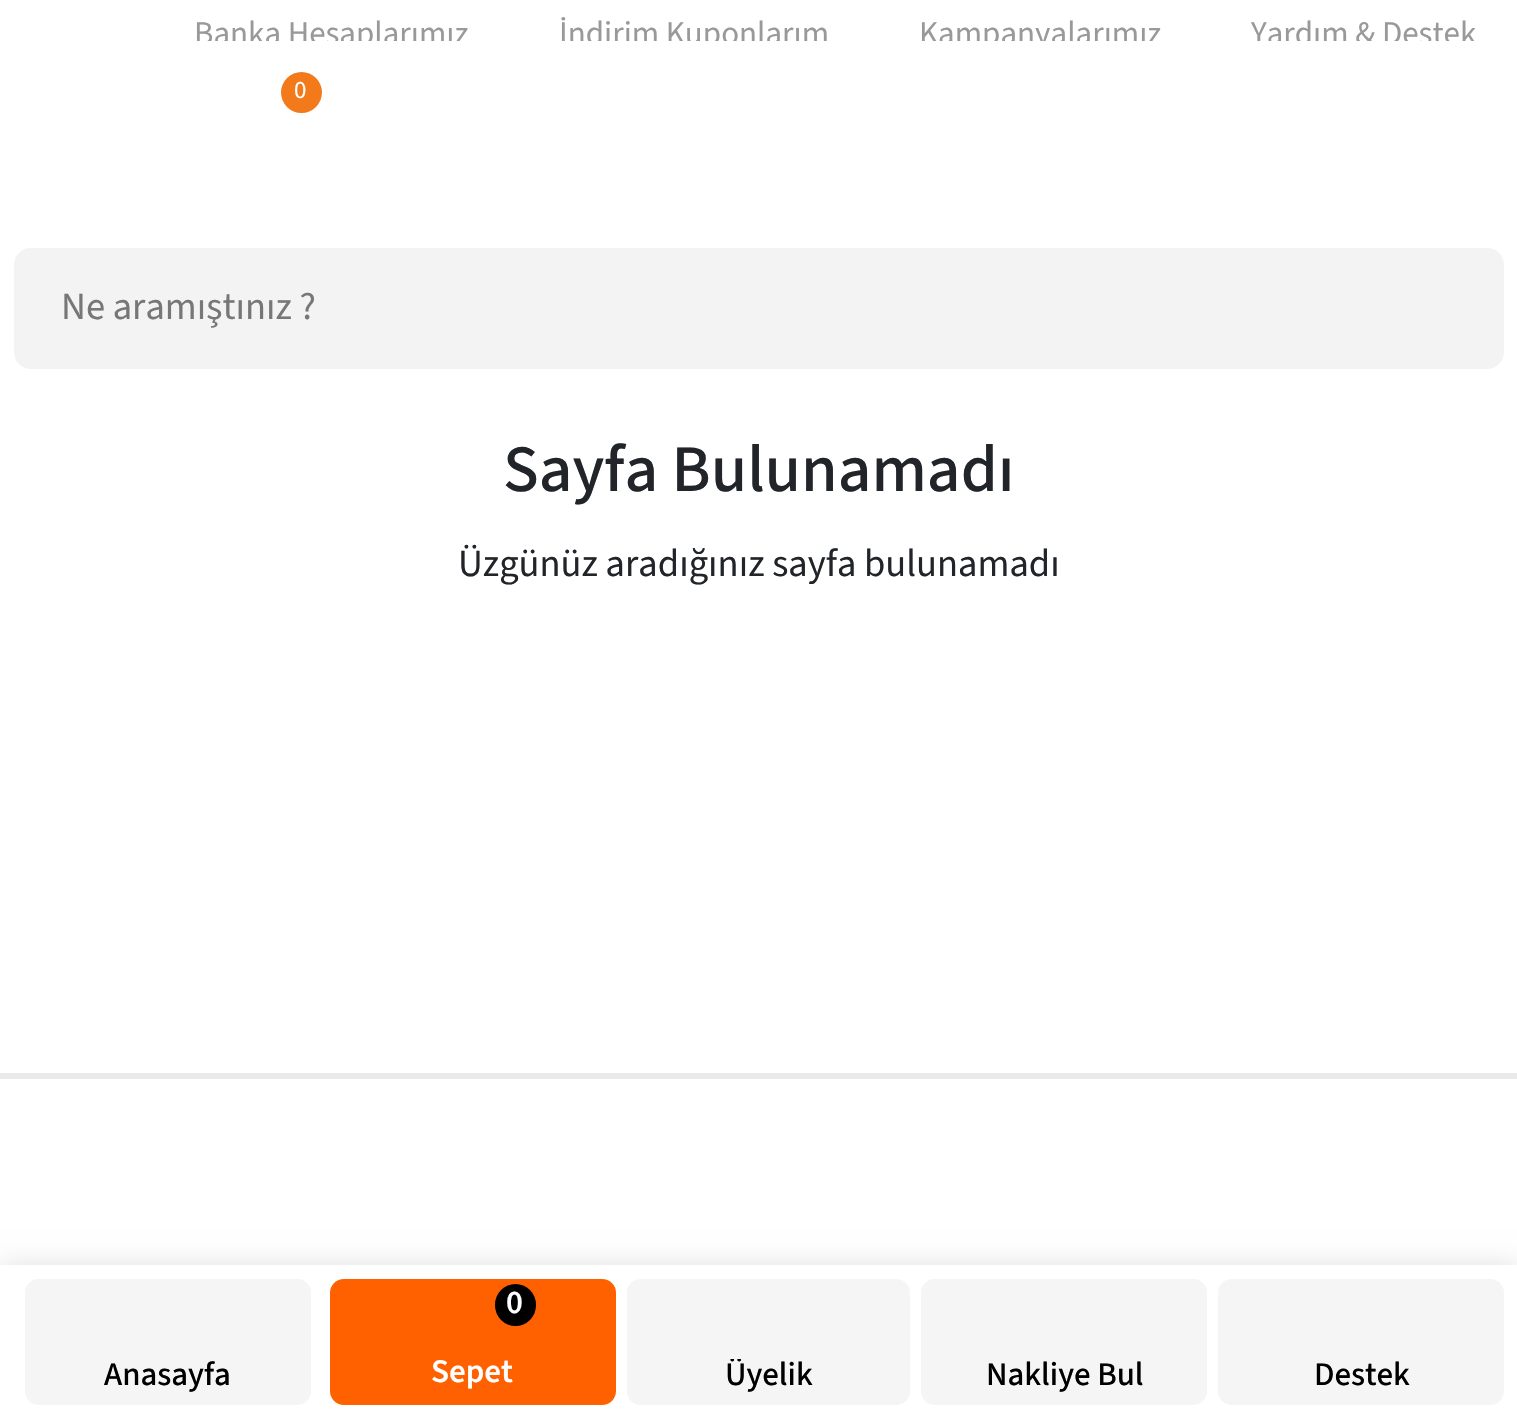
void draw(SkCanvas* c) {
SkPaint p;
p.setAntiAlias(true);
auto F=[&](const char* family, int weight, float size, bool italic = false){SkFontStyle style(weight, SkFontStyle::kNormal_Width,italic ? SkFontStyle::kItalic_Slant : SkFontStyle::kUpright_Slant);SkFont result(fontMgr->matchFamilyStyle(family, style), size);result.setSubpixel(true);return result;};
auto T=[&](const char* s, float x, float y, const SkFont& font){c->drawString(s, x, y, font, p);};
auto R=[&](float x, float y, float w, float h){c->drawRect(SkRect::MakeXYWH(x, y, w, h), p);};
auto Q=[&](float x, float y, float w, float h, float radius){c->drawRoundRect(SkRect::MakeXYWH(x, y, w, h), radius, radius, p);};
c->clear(0xffffffff);
auto f1 = F("Source Sans 3",400,33);
p.setColor(0xff999999);
T("Banka Hesaplarımız",194,44,f1);
T("İndirim Kuponlarım",559,44,f1);
T("Kampanyalarımız",919,44,f1);
T("Yardım & Destek",1251,44,f1);
p.setColor(0xffffffff);
R(196,41,1281,10);
p.setColor(0xfff27a1a);
c->drawCircle(301.5,92.5,20.5,p);
auto f2 = F("Source Sans 3",400,25);
p.setColor(0xffffffff);
T("0",294,98,f2);
p.setColor(0xfff3f3f3);
Q(14,248,1490,121,17);
auto f3 = F("Source Sans 3",400,38.5);
p.setColor(0xff777777);
T("Ne aramıştınız ?",61,319,f3);
auto f4 = F("Source Sans 3",500,66.25);
p.setColor(0xff212529);
T("Sayfa Bulunamadı",503,491,f4);
T("Üzgünüz aradığınız sayfa bulunamadı",458,576,f3);
p.setColor(0xffeaeaea);
R(0,1073,1517,6);
p.setColor(0x1f000000);
p.setMaskFilter(SkMaskFilter::MakeBlur(kNormal_SkBlurStyle, 12.5));
c->drawRect(SkRect::MakeXYWH(0,1265,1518,151),p);
p.setMaskFilter(nullptr);
p.setColor(0xffffffff);
R(0,1265,1517,151);
p.setColor(0xfff5f5f5);
Q(25,1279,286,126,14);
auto f5 = F("Source Sans 3",500,33);
p.setColor(0xff000000);
T("Anasayfa",104,1385,f5);
p.setColor(0xffff6000);
Q(330,1279,286,126,14);
p.setColor(0xff000000);
Q(495,1284,41,42,20.5);
auto f6 = F("Source Sans 3",600,33);
p.setColor(0xffffffff);
T("0",506,1313,f6);
T("Sepet",431,1382,f6);
p.setColor(0xfff5f5f5);
Q(627,1279,283,126,14);
c->save();
c->clipRect(SkRect::MakeXYWH(655,1359,228,38));
p.setColor(0xff000000);
T("Üyelik",725,1385,f5);
c->restore();
p.setColor(0xfff5f5f5);
Q(921,1279,286,126,14);
p.setColor(0xff000000);
T("Nakliye Bul",986,1385,f5);
p.setColor(0xfff5f5f5);
Q(1218,1279,286,126,14);
p.setColor(0xff000000);
T("Destek",1314,1385,f5);
}
